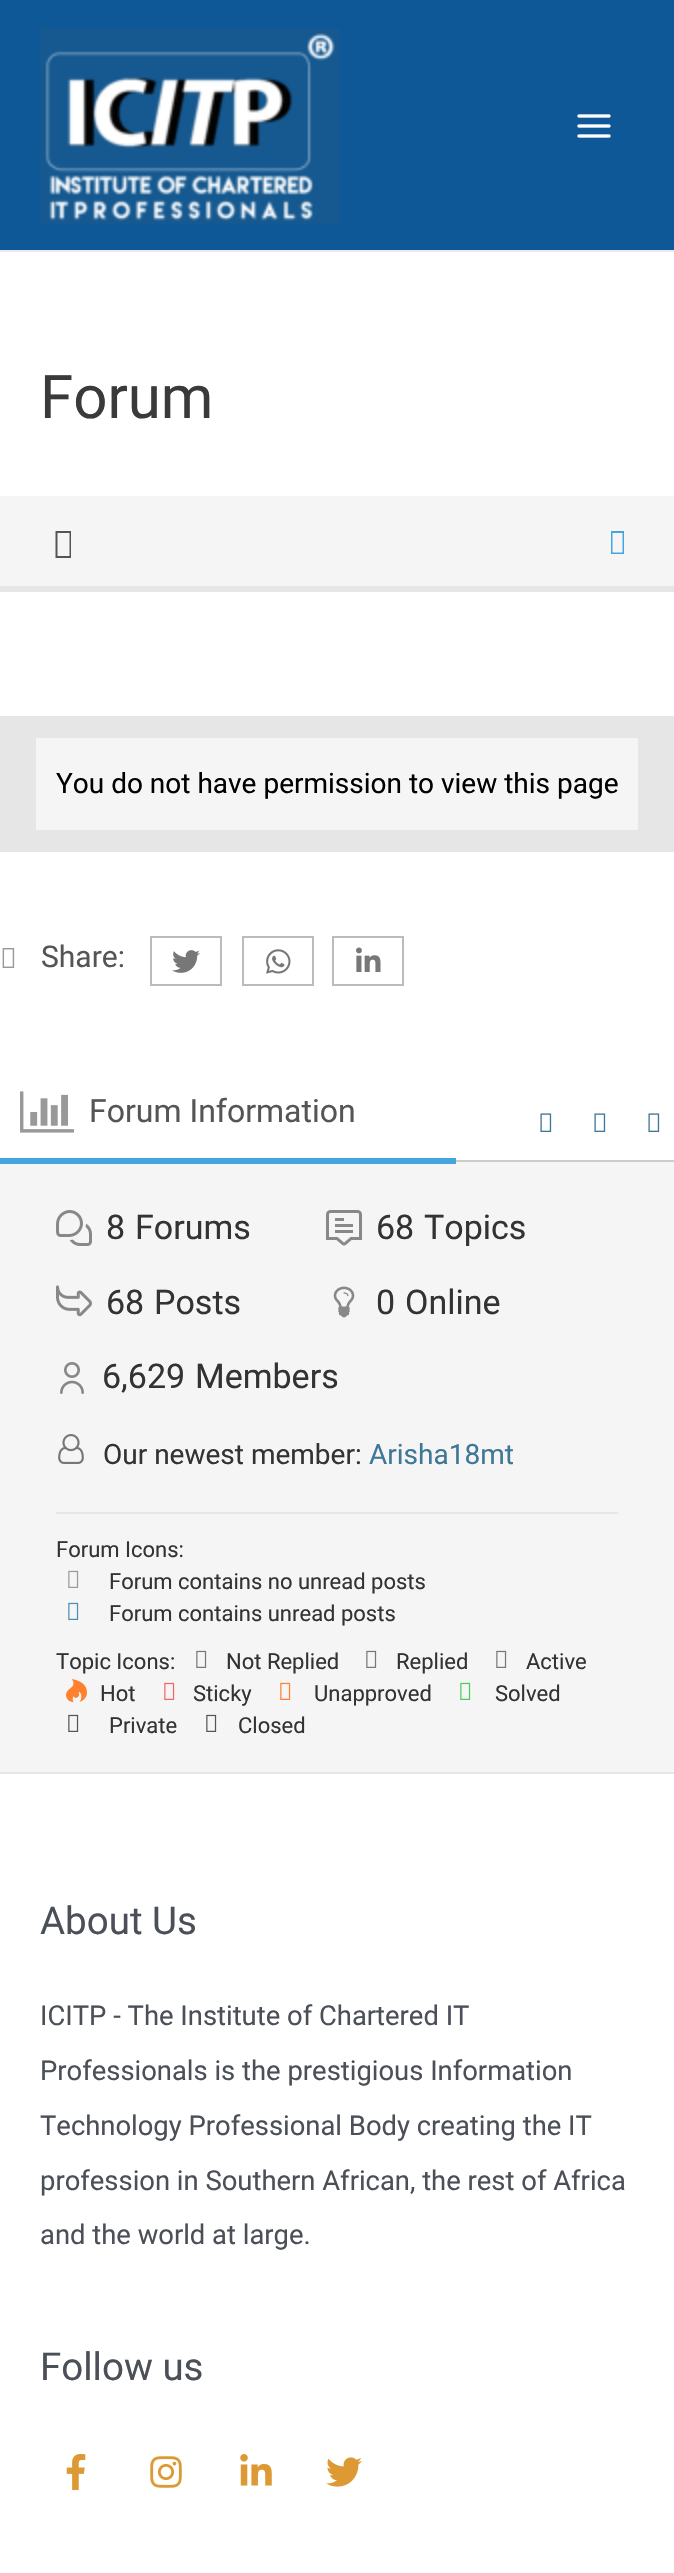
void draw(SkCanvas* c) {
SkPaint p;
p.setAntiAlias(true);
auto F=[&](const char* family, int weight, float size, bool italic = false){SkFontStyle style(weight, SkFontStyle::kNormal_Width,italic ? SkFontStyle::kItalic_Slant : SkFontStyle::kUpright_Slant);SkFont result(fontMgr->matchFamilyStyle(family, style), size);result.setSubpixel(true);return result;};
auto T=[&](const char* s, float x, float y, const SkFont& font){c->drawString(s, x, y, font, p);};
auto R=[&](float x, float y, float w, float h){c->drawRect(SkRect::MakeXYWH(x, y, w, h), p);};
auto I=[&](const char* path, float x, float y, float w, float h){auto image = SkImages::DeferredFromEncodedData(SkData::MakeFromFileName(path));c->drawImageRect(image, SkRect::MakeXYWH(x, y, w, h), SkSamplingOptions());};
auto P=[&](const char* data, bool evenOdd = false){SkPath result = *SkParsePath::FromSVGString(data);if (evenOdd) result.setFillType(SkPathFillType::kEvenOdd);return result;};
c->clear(0xffffffff);
p.setColor(0xff0f5898);
R(0,0,674,250);
p.setColor(0xffeaeaea);
R(0,250,674,2);
I("1.png",40,28,300,196);
I("2.png",577,114,34,24);
auto f1 = F("Roboto",400,60);
p.setColor(0xff3a3a3a);
T("Forum",40,418,f1);
p.setColor(0xfff5f5f5);
R(0,496,674,90);
p.setColor(0xffe6e6e6);
R(0,586,674,6);
p.setColor(0xff555555);
c->drawPath(P("M55.5 558v-27h15.5v27zm2-2h12v-23h-12z"),p);
p.setColor(0xff43a6df);
c->drawPath(P("M611 554v-23h13v23zm1.5-1.5h10v-19.5h-10z"),p);
p.setColor(0xffe6e6e6);
R(0,716,674,136);
p.setColor(0xfff5f5f5);
R(36,738,602,92);
auto f2 = F("Roboto",400,28);
p.setColor(0xff000000);
T("You do not have permission to view this page",56,793,f2);
I("3.png",2,948,13,20);
auto f3 = F("Roboto",400,30);
p.setColor(0xff555555);
T("Share:",41,967,f3);
p.setStroke(true);
p.setStrokeWidth(2);
p.setColor(0xffbbbbbb);
c->drawRect(SkRect::MakeXYWH(151,937,70,48),p);
I("4.png",172,950,28,23);
c->drawRect(SkRect::MakeXYWH(243,937,70,48),p);
I("5.png",266,949,25,25);
c->drawRect(SkRect::MakeXYWH(333,937,70,48),p);
I("6.png",356,947,25,25);
p.setStroke(false);
p.setColor(0xffcccccc);
R(456,1160,218,2);
p.setColor(0xfff5f5f5);
R(0,1162,674,610);
p.setColor(0xff43a6df);
R(0,1158,456,6);
I("7.png",20,1091,54,42);
auto f4 = F("Roboto",400,32);
p.setColor(0xff555555);
T("Forum Information",89,1122,f4);
I("8.png",540,1113,12,19);
I("8.png",594,1113,12,19);
I("8.png",648,1113,12,19);
I("9.png",56,1210,36,36);
auto f5 = F("Roboto",400,34);
p.setColor(0xff333333);
T("8",106,1239,f5);
T("Forums",135,1239,f5);
I("10.png",326,1210,36,36);
T("68",376,1239,f5);
T("Topics",424,1239,f5);
I("11.png",56,1285,36,32);
T("68",106,1314,f5);
T("Posts",154,1314,f5);
I("12.png",333,1286,22,32);
T("0",376,1314,f5);
T("Online",405,1314,f5);
I("13.png",60,1362,24,32);
T("6,629",102,1388,f5);
T("Members",195,1388,f5);
I("14.png",58,1434,26,30);
T("Our newest member:",103,1464,f2);
p.setColor(0xff3f7796);
T("Arisha18mt",369,1464,f2);
p.setColor(0xffe6e6e6);
R(56,1512,562,2);
auto f6 = F("Roboto",400,22);
p.setColor(0xff333333);
T("Forum Icons:",56,1557,f6);
I("15.png",68,1570,11,18);
T("Forum contains no unread posts",109,1589,f6);
I("16.png",68,1602,11,18);
T("Forum contains unread posts",109,1621,f6);
T("Topic Icons:",56,1669,f6);
I("17.png",196,1650,11,18);
T("Not Replied",226,1669,f6);
I("17.png",366,1650,11,18);
T("Replied",396,1669,f6);
I("17.png",496,1650,11,18);
T("Active",526,1669,f6);
I("18.png",66,1679,21,24);
T("Hot",100,1701,f6);
I("19.png",164,1682,11,18);
T("Sticky",193,1701,f6);
I("20.png",280,1682,11,18);
T("Unapproved",314,1701,f6);
I("21.png",460,1682,11,18);
T("Solved",495,1701,f6);
I("22.png",68,1714,11,18);
T("Private",109,1733,f6);
I("22.png",206,1714,11,18);
T("Closed",238,1733,f6);
p.setColor(0xffe6e6e6);
R(0,1772,674,2);
auto f7 = F("Roboto",400,38.5);
p.setColor(0xff4b4f58);
T("About Us",40,1934,f7);
auto f8 = F("Roboto",400,27.4);
T("ICITP - The Institute of Chartered IT",40,2025,f8);
T("Professionals is the prestigious Information",40,2080,f8);
T("Technology Professional Body creating the IT",40,2135,f8);
T("profession in Southern African, the rest of Africa",40,2190,f8);
T("and the world at large.",40,2244,f8);
T("Follow us",40,2380,f7);
I("23.png",66,2454,20,36);
I("24.png",150,2456,32,32);
I("25.png",240,2454,32,32);
I("26.png",326,2457,36,30);
}
